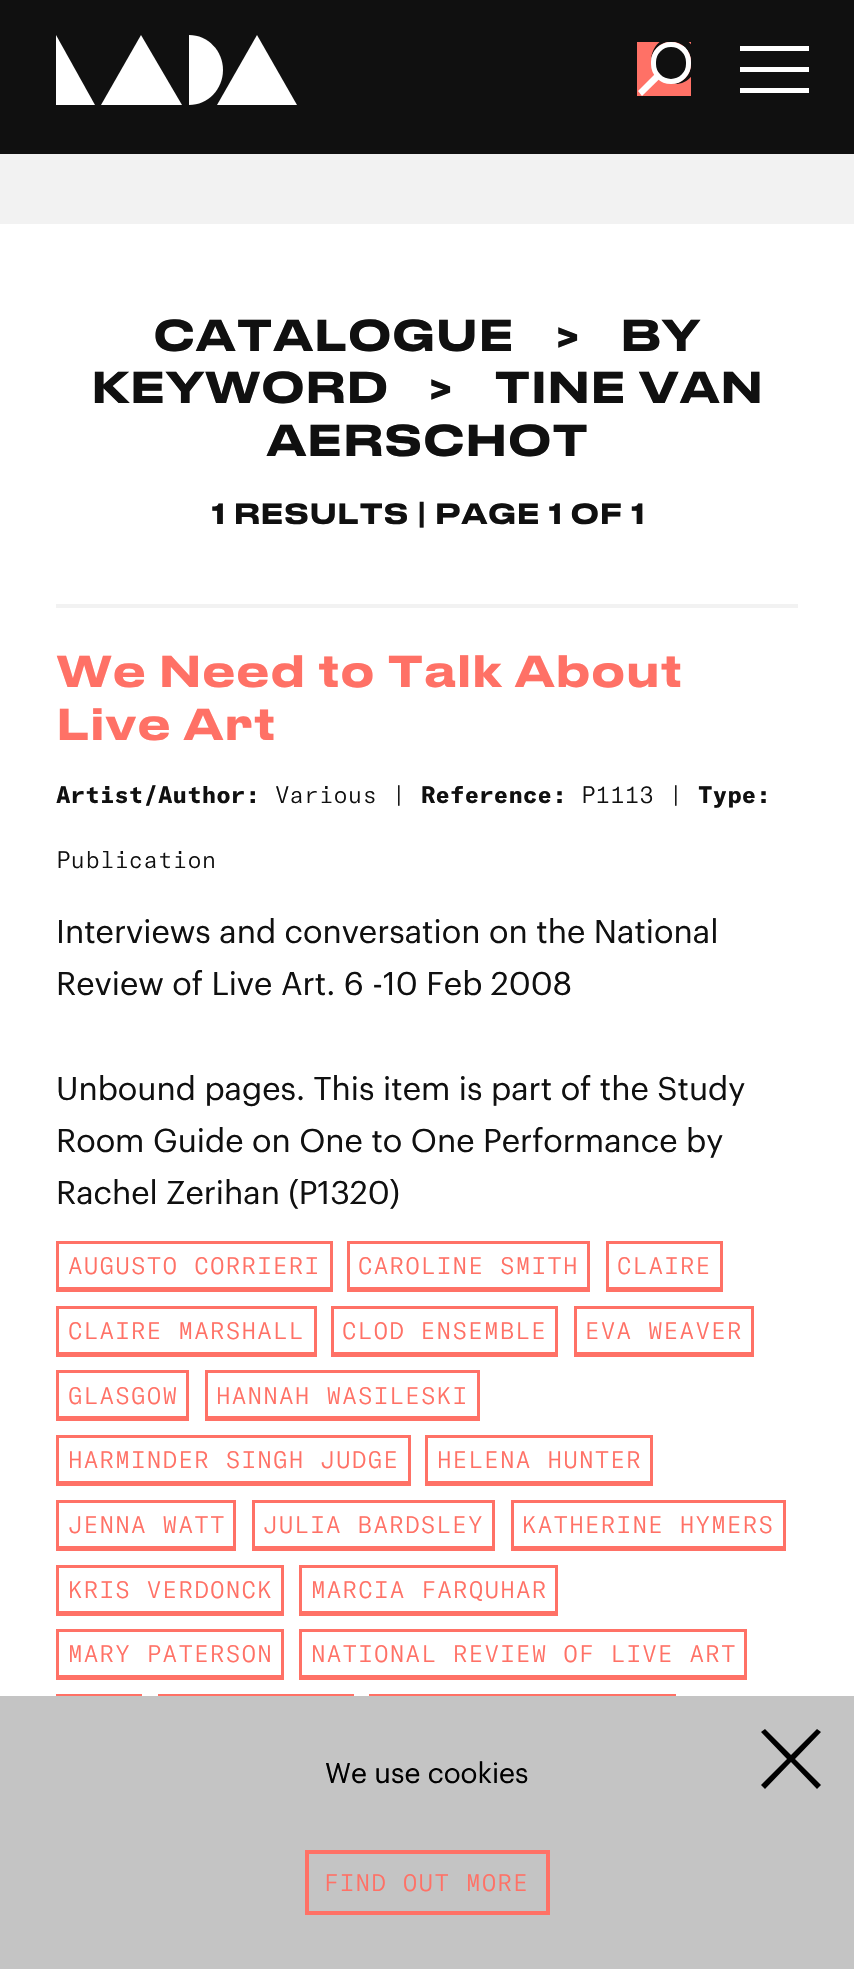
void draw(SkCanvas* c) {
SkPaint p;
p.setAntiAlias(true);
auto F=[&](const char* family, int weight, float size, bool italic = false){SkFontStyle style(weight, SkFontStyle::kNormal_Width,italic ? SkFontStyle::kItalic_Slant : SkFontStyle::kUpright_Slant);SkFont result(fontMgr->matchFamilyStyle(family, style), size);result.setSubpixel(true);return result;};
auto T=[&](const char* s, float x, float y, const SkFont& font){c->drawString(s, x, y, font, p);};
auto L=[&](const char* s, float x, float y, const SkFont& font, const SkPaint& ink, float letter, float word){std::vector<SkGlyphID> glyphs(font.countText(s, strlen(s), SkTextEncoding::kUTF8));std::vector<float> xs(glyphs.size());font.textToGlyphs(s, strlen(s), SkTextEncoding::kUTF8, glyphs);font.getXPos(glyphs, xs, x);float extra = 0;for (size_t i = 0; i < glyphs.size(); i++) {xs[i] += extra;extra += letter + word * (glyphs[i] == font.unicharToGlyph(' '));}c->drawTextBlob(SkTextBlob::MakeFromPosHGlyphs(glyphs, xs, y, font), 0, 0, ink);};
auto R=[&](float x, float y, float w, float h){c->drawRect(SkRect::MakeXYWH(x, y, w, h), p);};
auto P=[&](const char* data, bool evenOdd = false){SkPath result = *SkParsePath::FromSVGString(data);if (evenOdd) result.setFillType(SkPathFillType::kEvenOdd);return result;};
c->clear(0xffffffff);
p.setColor(0xff101010);
R(0,0,854,154);
p.setColor(0xffffffff);
c->drawPath(P("M217 105l40-70l40 70z"),p);
c->drawPath(P("M101 105l40-70l41 70z"),p);
c->drawPath(P("M56 35v70h39z"),p);
c->drawPath(P("M189 35v70c19 0 34-16 34-35c0-19-15-35-34-35"),p);
p.setColor(0xffff7166);
R(637,42,54,54);
p.setColor(0xffffffff);
c->drawPath(P("M638 91l48-48l5 5l-49 48z"),p);
p.setColor(0xff101010);
c->drawPath(P("M674 37c-14 0-23 11-23 25c0-7 4-13 9-17c4-3 10-4 15-3c23 5 21 40-2 42c31 2 32-47 1-47z"),p);
c->drawRoundRect(SkRect::MakeXYWH(653.5,44.5,35,37),17.5,17.5,p);
p.setStroke(true);
p.setStrokeWidth(5);
p.setColor(0xffffffff);
c->drawRoundRect(SkRect::MakeXYWH(653.5,44.5,35,37),17.5,17.5,p);
p.setStroke(false);
R(740,46,69,5);
R(740,67,69,5);
R(740,88,69,5);
p.setColor(0xfff2f2f2);
R(0,154,854,70);
auto f1 = F("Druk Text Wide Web",500,42);
p.setColor(0xff101010);
T("CATALOGUE",153,351,f1);
T(">",555,351,f1);
T("BY",620,351,f1);
T("KEYWORD",91,403,f1);
T(">",428,403,f1);
T("TINE VAN",494,403,f1);
T("AERSCHOT",266,456,f1);
auto f2 = F("Druk Text Wide Web",500,27.5);
T("1 RESULTS | PAGE 1 OF 1",211,524,f2);
p.setColor(0xfff2f2f2);
R(56,604,742,4);
p.setColor(0xffff7166);
T("We Need to Talk About",56,687,f1);
T("Live Art",56,740,f1);
auto f3 = F("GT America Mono",700,23.5);
p.setColor(0xff101010);
T("Artist/Author:",56,803,f3);
auto f4 = F("GT America Mono",300,23.5);
T("Various |",275,803,f4);
T("Reference:",421,803,f3);
T("P1113 |",581,803,f4);
T("Type:",698,803,f3);
T("Publication",56,868,f4);
auto f5 = F("Graphik",400,32.2);
T("Interviews and conversation on the National",56,943,f5);
T("Review of Live Art. 6 -10 Feb 2008",56,995,f5);
T("Unbound pages. This item is part of the Study",56,1100,f5);
T("Room Guide on One to One Performance by",56,1152,f5);
T("Rachel Zerihan (P1320)",56,1204,f5);
p.setStroke(true);
p.setStrokeWidth(3);
p.setColor(0xffff7166);
c->drawRect(SkRect::MakeXYWH(57.5,1242.5,274,46),p);
p.setStroke(false);
R(56,1290,277,2);
L("AUGUSTO CORRIERI",68,1274,f4,p,1.2,0);
p.setStroke(true);
c->drawRect(SkRect::MakeXYWH(348.5,1242.5,240,46),p);
p.setStroke(false);
R(347,1290,243,2);
L("CAROLINE SMITH",358,1274,f4,p,1.2,0);
p.setStroke(true);
c->drawRect(SkRect::MakeXYWH(607.5,1242.5,114,46),p);
p.setStroke(false);
R(606,1290,117,2);
L("CLAIRE",617,1274,f4,p,1.2,0);
p.setStroke(true);
c->drawRect(SkRect::MakeXYWH(57.5,1307.5,258,46),p);
p.setStroke(false);
R(56,1355,261,2);
L("CLAIRE MARSHALL",68,1339,f4,p,1.2,0);
p.setStroke(true);
c->drawRect(SkRect::MakeXYWH(332.5,1307.5,224,46),p);
p.setStroke(false);
R(331,1355,227,2);
L("CLOD ENSEMBLE",342,1339,f4,p,1.2,0);
p.setStroke(true);
c->drawRect(SkRect::MakeXYWH(575.5,1307.5,177,46),p);
p.setStroke(false);
R(574,1355,180,2);
L("EVA WEAVER",585,1339,f4,p,1.2,0);
p.setStroke(true);
c->drawRect(SkRect::MakeXYWH(57.5,1371.5,130,46),p);
p.setStroke(false);
R(56,1419,133,2);
L("GLASGOW",68,1404,f4,p,1.2,0);
p.setStroke(true);
c->drawRect(SkRect::MakeXYWH(206.5,1371.5,272,46),p);
p.setStroke(false);
R(205,1419,275,2);
L("HANNAH WASILESKI",216,1404,f4,p,1.2,0);
p.setStroke(true);
c->drawRect(SkRect::MakeXYWH(57.5,1436.5,352,46),p);
p.setStroke(false);
R(56,1484,355,2);
L("HARMINDER SINGH JUDGE",68,1468,f4,p,1.2,0);
p.setStroke(true);
c->drawRect(SkRect::MakeXYWH(426.5,1436.5,225,46),p);
p.setStroke(false);
R(425,1484,228,2);
L("HELENA HUNTER",437,1468,f4,p,1.2,0);
p.setStroke(true);
c->drawRect(SkRect::MakeXYWH(57.5,1501.5,177,46),p);
p.setStroke(false);
R(56,1549,180,2);
L("JENNA WATT",68,1533,f4,p,1.2,0);
p.setStroke(true);
c->drawRect(SkRect::MakeXYWH(253.5,1501.5,240,46),p);
p.setStroke(false);
R(252,1549,243,2);
L("JULIA BARDSLEY",263,1533,f4,p,1.2,0);
p.setStroke(true);
c->drawRect(SkRect::MakeXYWH(512.5,1501.5,272,46),p);
p.setStroke(false);
R(511,1549,275,2);
L("KATHERINE HYMERS",522,1533,f4,p,1.2,0);
p.setStroke(true);
c->drawRect(SkRect::MakeXYWH(57.5,1566.5,225,46),p);
p.setStroke(false);
R(56,1614,228,2);
L("KRIS VERDONCK",68,1598,f4,p,1.2,0);
p.setStroke(true);
c->drawRect(SkRect::MakeXYWH(300.5,1566.5,256,46),p);
p.setStroke(false);
R(299,1614,259,2);
L("MARCIA FARQUHAR",311,1598,f4,p,1.2,0);
p.setStroke(true);
c->drawRect(SkRect::MakeXYWH(57.5,1630.5,225,46),p);
p.setStroke(false);
R(56,1678,228,2);
L("MARY PATERSON",68,1662,f4,p,1.2,0);
p.setStroke(true);
c->drawRect(SkRect::MakeXYWH(300.5,1630.5,445,46),p);
p.setStroke(false);
R(299,1678,448,2);
L("NATIONAL REVIEW OF LIVE ART",311,1662,f4,p,1.2,0);
p.setStroke(true);
c->drawRect(SkRect::MakeXYWH(57.5,1695.5,83,46),p);
c->drawRect(SkRect::MakeXYWH(159.5,1695.5,193,46),p);
c->drawRect(SkRect::MakeXYWH(370.5,1695.5,304,46),p);
p.setStroke(false);
p.setColor(0xffc4c4c4);
R(0,1696,854,273);
auto f6 = F("Graphik",400,28);
p.setColor(0xff000000);
T("We use cookies",325,1783,f6);
c->drawPath(P("M787 1759l-26-27l4-3l26 26l26-26l4 3l-26 27l26 26l-4 4l-26-27l-26 27l-4-4z"),p);
p.setStroke(true);
p.setStrokeWidth(4);
p.setColor(0xffff7166);
c->drawRect(SkRect::MakeXYWH(307,1852,241,61),p);
p.setStroke(false);
L("FIND OUT MORE",324,1891,f4,p,1.2,0);
}
